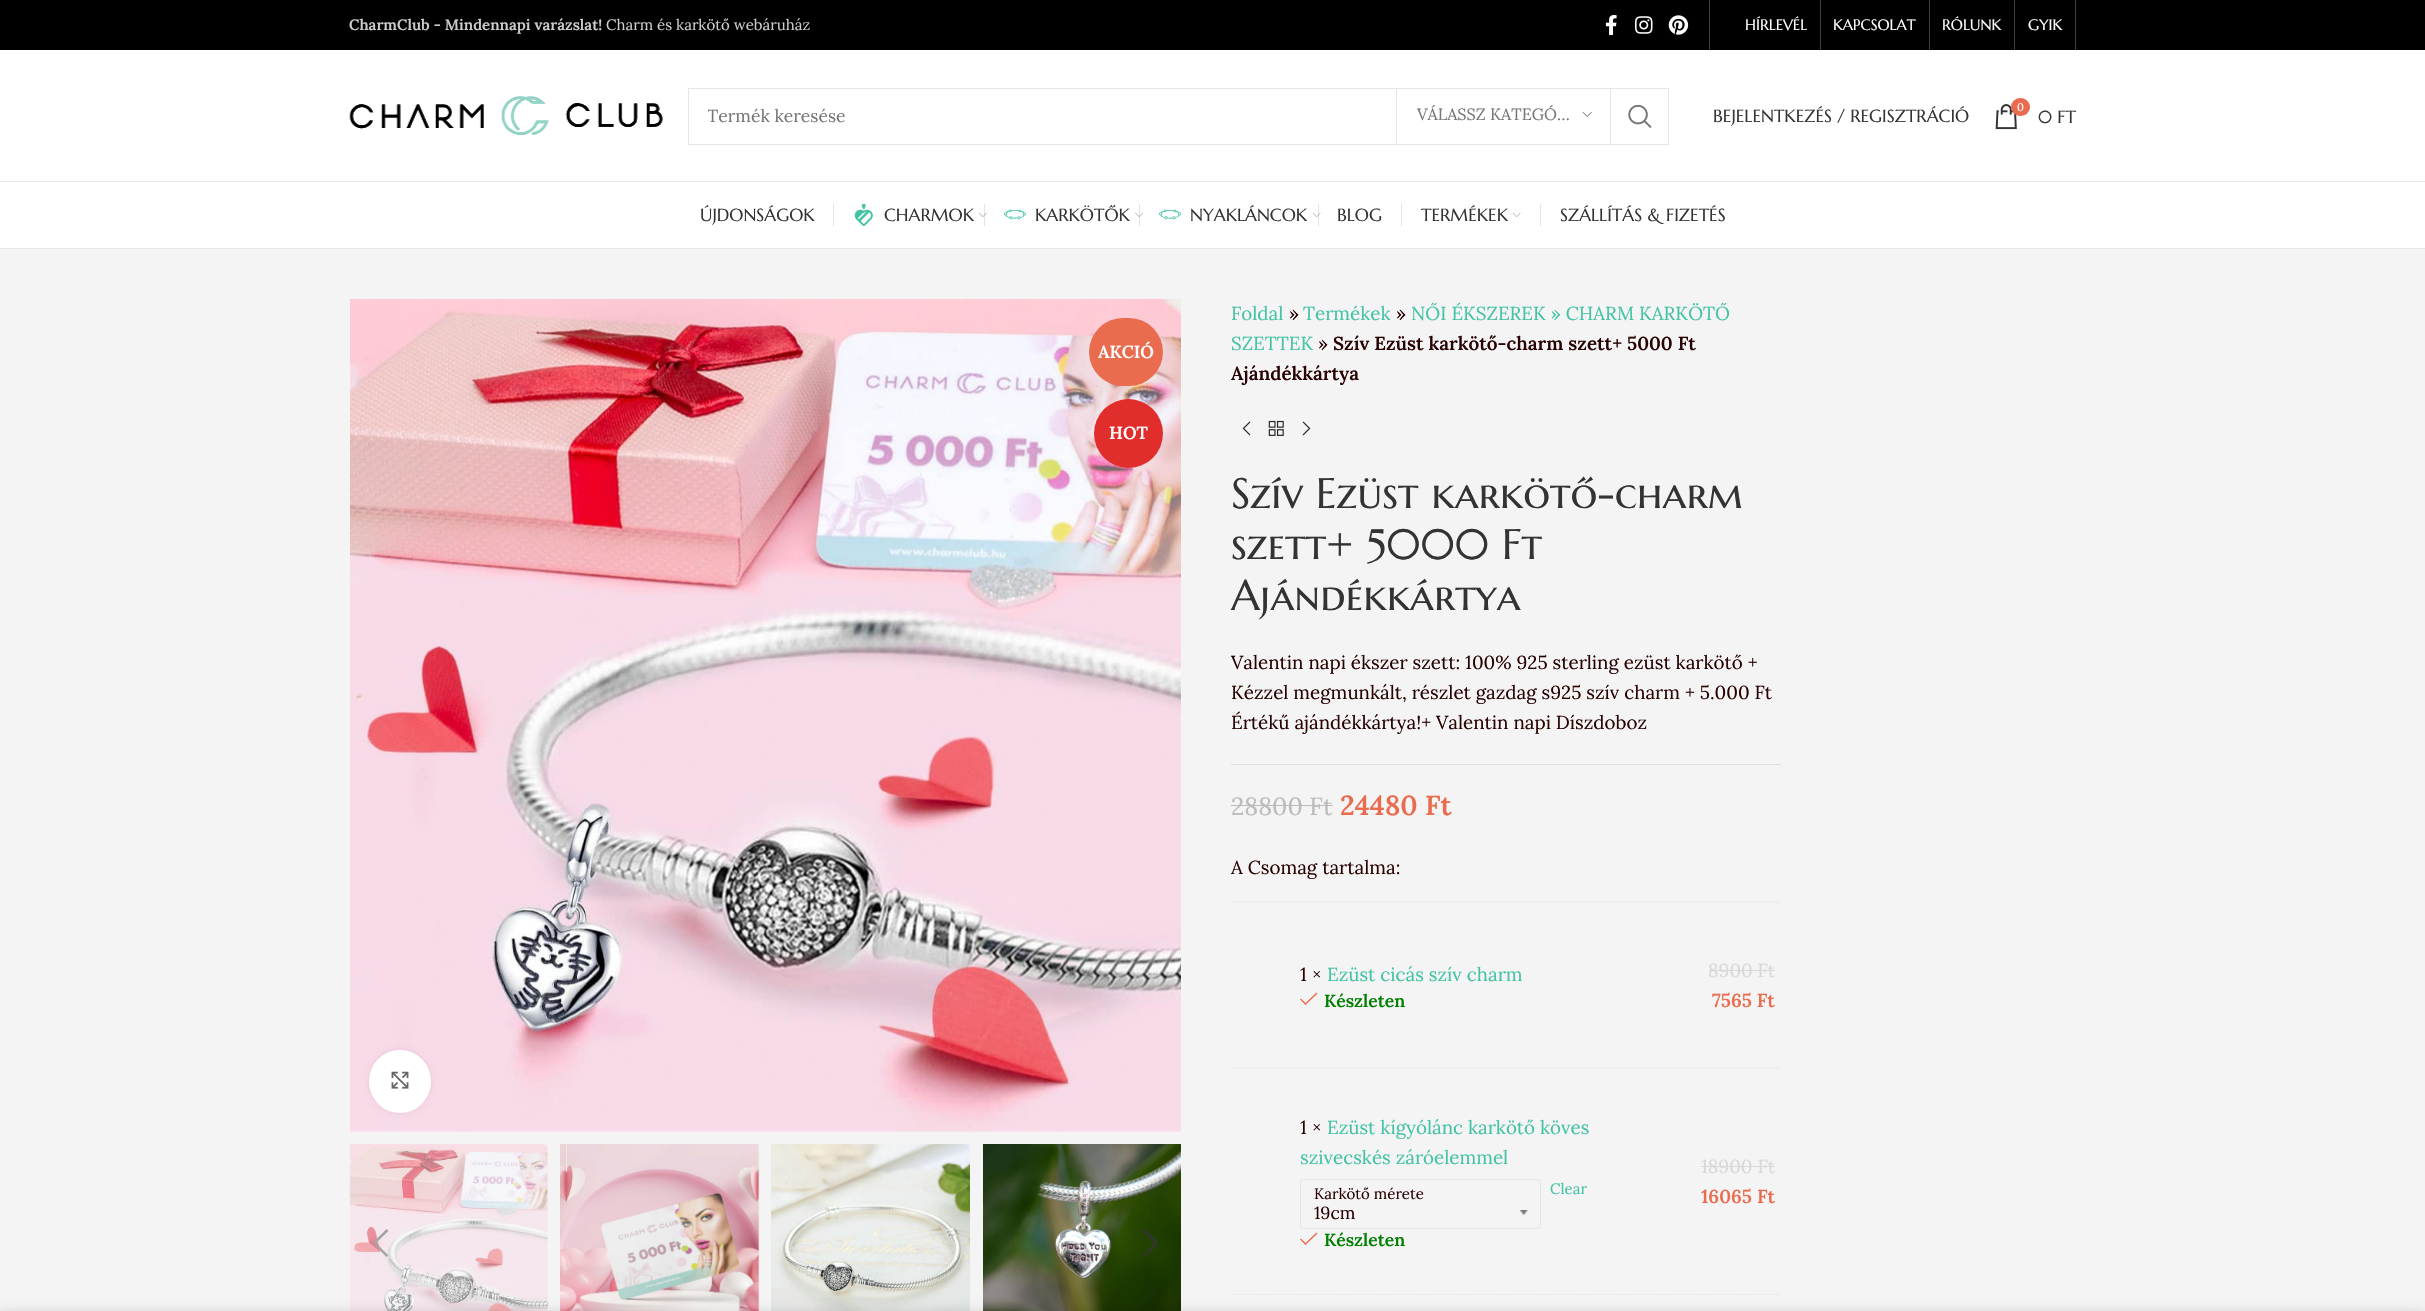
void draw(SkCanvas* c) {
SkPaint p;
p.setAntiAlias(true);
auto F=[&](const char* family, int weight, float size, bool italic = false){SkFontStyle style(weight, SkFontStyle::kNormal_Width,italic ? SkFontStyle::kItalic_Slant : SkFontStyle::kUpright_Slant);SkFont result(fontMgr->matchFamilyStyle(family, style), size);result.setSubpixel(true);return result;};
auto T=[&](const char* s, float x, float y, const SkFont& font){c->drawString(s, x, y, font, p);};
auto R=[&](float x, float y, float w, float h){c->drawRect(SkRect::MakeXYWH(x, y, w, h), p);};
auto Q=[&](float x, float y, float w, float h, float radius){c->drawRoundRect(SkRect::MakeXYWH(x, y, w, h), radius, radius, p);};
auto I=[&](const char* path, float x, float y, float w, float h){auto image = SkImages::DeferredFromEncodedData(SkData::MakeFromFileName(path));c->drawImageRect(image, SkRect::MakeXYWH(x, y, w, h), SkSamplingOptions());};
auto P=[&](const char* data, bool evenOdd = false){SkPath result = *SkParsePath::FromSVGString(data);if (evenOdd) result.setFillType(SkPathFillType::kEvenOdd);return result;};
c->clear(0xffffffff);
p.setColor(0xff000000);
R(0,0,2425,50);
auto f1 = F("Lora",600,15);
p.setColor(0xffcccccc);
T("CharmClub - Mindennapi varázslat!",349,30,f1);
auto f2 = F("Lora",400,15);
T("Charm és karkötő webáruház",606,30,f2);
I("1.png",1605,15,12,20);
I("2.png",1635,16,18,18);
I("3.png",1668,15,21,20);
p.setColor(0xff404040);
R(1709,0,1,50);
auto f3 = F("Marcellus SC",400,15);
p.setColor(0xffffffff);
T("HÍRLEVÉL",1745,30,f3);
p.setColor(0xff404040);
R(1820,0,1,50);
p.setColor(0xffffffff);
T("KAPCSOLAT",1833,30,f3);
p.setColor(0xff404040);
R(1929,0,1,50);
p.setColor(0xffffffff);
T("RÓLUNK",1942,30,f3);
p.setColor(0xff404040);
R(2014,0,1,50);
p.setColor(0xffffffff);
T("GYIK",2028,30,f3);
p.setColor(0xff404040);
R(2075,0,1,50);
p.setColor(0xffe8e8e8);
R(0,181,2425,1);
I("4.png",349,96,314,39);
p.setStroke(true);
p.setStrokeWidth(1);
p.setColor(0xffe6e6e6);
c->drawRect(SkRect::MakeXYWH(688.5,88.5,980,56),p);
c->save();
c->clipRect(SkRect::MakeXYWH(708,105,650,23));
auto f4 = F("Lora",400,17.5);
p.setStroke(false);
p.setColor(0xff767676);
T("Termék keresése",707,122,f4);
c->restore();
p.setColor(0xffe6e6e6);
R(1610,89,1,55);
R(1396,89,1,55);
auto f5 = F("Lora",400,16.25);
p.setColor(0xff767676);
T("VÁLASSZ KATEGÓ…",1417,120,f5);
I("5.png",1582,111,10,6);
I("6.png",1628,104,24,25);
auto f6 = F("Marcellus SC",400,17.5);
p.setColor(0xff333333);
T("BEJELENTKEZÉS / REGISZTRÁCIÓ",1713,122,f6);
I("7.png",1995,104,22,26);
p.setColor(0xffea6c4f);
Q(2011,98,19,18,9);
auto f7 = F("Lora",400,11);
p.setColor(0xffffffff);
T("0",2017,111,f7);
p.setColor(0xff333333);
T("0 FT",2038,123,f6);
p.setColor(0xffe8e8e8);
R(0,248,2425,1);
p.setColor(0xff333333);
T("ÚJDONSÁGOK",700,221,f6);
p.setColor(0xffe4e4e4);
R(833,204,1,22);
I("8.png",854,204,19,22);
p.setColor(0xff333333);
T("CHARMOK",884,221,f6);
I("9.png",979,212,8,5);
p.setColor(0x1c000000);
R(984,204,1,22);
I("10.png",1004,209,22,11);
p.setColor(0xff333333);
T("KARKÖTŐK",1035,221,f6);
I("11.png",1135,212,8,5);
p.setColor(0x1c000000);
R(1139,204,1,22);
I("10.png",1159,209,22,11);
p.setColor(0xff333333);
T("NYAKLÁNCOK",1190,221,f6);
I("12.png",1312,212,9,5);
p.setColor(0x1c000000);
R(1318,204,1,22);
p.setColor(0xff333333);
T("BLOG",1337,221,f6);
p.setColor(0xffe4e4e4);
R(1401,204,1,22);
p.setColor(0xff333333);
T("TERMÉKEK",1421,221,f6);
I("12.png",1512,212,9,5);
p.setColor(0xffe4e4e4);
R(1540,204,1,22);
p.setColor(0xff333333);
T("SZÁLLÍTÁS & FIZETÉS",1560,221,f6);
p.setColor(0xfff4f4f4);
R(0,249,2425,1062);
I("13.png",350,299,831,833);
p.setColor(0xffea6c4f);
Q(1089,318,74,68,34);
auto f8 = F("Lora",600,17.5);
p.setColor(0xffffffff);
T("AKCIÓ",1098,358,f8);
p.setColor(0xffe22d2d);
c->drawCircle(1128.5,433.5,34.5,p);
p.setColor(0xffffffff);
T("HOT",1109,439,f8);
p.setColor(0x14000000);
p.setMaskFilter(SkMaskFilter::MakeBlur(kNormal_SkBlurStyle, 3));
c->drawRoundRect(SkRect::MakeXYWH(369,1050,62,63),31,31,p);
p.setMaskFilter(nullptr);
p.setColor(0xffffffff);
Q(369,1050,62,63,31);
I("14.png",391,1071,18,18);
I("15.png",349,1144,199,167);
I("16.png",560,1144,200,167);
I("17.png",771,1144,199,167);
I("18.png",983,1144,198,167);
p.setColor(0xffa5a5a5);
c->drawPath(P("M388.5 1231l-2-2l-14 14l14 14l2-1.5l-12.5-12.5z"),p);
p.setColor(0xff333333);
c->drawPath(P("M1142.5 1231l12.5 12l-12.5 12.5l2 1.5l14-14l-14-14z"),p);
auto f9 = F("Lora",400,18.75);
p.setColor(0xff43c3a5);
T("Foldal",1231,320,f9);
p.setColor(0xff280202);
T("»",1289,320,f9);
p.setColor(0xff43c3a5);
T("Termékek",1303,320,f9);
p.setColor(0xff280202);
T("»",1396,320,f9);
p.setColor(0xff43c3a5);
T("NŐI ÉKSZEREK » CHARM KARKÖTŐ",1411,320,f9);
T("SZETTEK",1231,350,f9);
p.setColor(0xff280202);
T("»",1318,350,f9);
auto f10 = F("Lora",600,18.75);
T("Szív Ezüst karkötő-charm szett+ 5000 Ft",1333,350,f10);
T("Ajándékkártya",1231,380,f10);
I("19.png",1242,421,9,15);
I("20.png",1268,420,16,16);
I("21.png",1302,421,9,15);
auto f11 = F("Marcellus SC",400,42.5);
p.setColor(0xff333333);
T("Szív Ezüst karkötő-charm",1231,508,f11);
T("szett+ 5000 Ft",1231,559,f11);
T("Ajándékkártya",1231,610,f11);
p.setColor(0xff280202);
T("Valentin napi ékszer szett: 100% 925 sterling ezüst karkötő +",1231,669,f9);
T("Kézzel megmunkált, részlet gazdag s925 szív charm + 5.000 Ft",1231,699,f9);
T("Értékű ajándékkártya!+ Valentin napi Díszdoboz",1231,729,f9);
p.setColor(0xffdddddd);
R(1231,764,550,1);
auto f12 = F("Lora",400,24.75);
p.setColor(0xffbbbbbb);
T("28800 Ft",1231,815,f12);
R(1231,805,102,1);
auto f13 = F("Lora",600,27.5);
p.setColor(0xffea6c4f);
T("24480 Ft",1340,815,f13);
p.setColor(0xff280202);
T("A Csomag tartalma:",1231,874,f9);
p.setStroke(true);
p.setStrokeWidth(1.2);
p.setColor(0xffe5e5e5);
p.setPathEffect(SkDashPathEffect::Make({{1.25f,1.25f}}, 0));
c->drawPath(P("M1231 902h550"),p);
p.setPathEffect(nullptr);
p.setPathEffect(SkDashPathEffect::Make({{1.25f,1.25f}}, 0));
c->drawPath(P("M1231 1068h550"),p);
p.setPathEffect(nullptr);
p.setStroke(false);
p.setColor(0xff280202);
T("1 ×",1300,981,f9);
p.setColor(0xff43c3a5);
T("Ezüst cicás szív charm",1327,981,f9);
p.setColor(0xffea6c4f);
c->drawPath(P("M1317.5 993.5l-1-1l-11 10.5l-4.5-4.5l-1 1l5.5 5.5z"),p);
p.setColor(0xff008000);
T("Készleten",1324,1007,f8);
p.setColor(0xffd8d8d8);
T("8900 Ft",1708,977,f9);
R(1709,970,66,1);
p.setColor(0xffea6c4f);
T("7565 Ft",1712,1007,f10);
p.setStroke(true);
p.setColor(0xffe5e5e5);
p.setPathEffect(SkDashPathEffect::Make({{1.25f,1.25f}}, 0));
c->drawPath(P("M1231 1294.5h550"),p);
p.setPathEffect(nullptr);
p.setStroke(false);
p.setColor(0xff280202);
T("1 ×",1300,1134,f9);
p.setColor(0xff43c3a5);
T("Ezüst kígyólánc karkötő köves",1327,1134,f9);
T("szivecskés záróelemmel",1300,1164,f9);
p.setStroke(true);
p.setStrokeWidth(1);
p.setColor(0xffe5e5e5);
c->drawRoundRect(SkRect::MakeXYWH(1300.5,1179.5,240,49),2,2,p);
p.setStroke(false);
p.setColor(0xff280202);
T("Karkötő mérete",1314,1199,f2);
I("22.png",1520,1210,8,5);
T("19cm",1314,1219,f4);
p.setColor(0xff43c3a5);
T("Clear",1550,1194,f2);
p.setColor(0xffea6c4f);
c->drawPath(P("M1317.5 1233.5l-1-1l-11 10.5l-4.5-4.5l-1 1l5.5 5.5z"),p);
p.setColor(0xff008000);
T("Készleten",1324,1246,f8);
p.setColor(0xffd8d8d8);
T("18900 Ft",1701,1173,f9);
R(1701,1166,74,1);
p.setColor(0xffea6c4f);
T("16065 Ft",1701,1203,f10);
p.setColor(0x1f000000);
p.setMaskFilter(SkMaskFilter::MakeBlur(kNormal_SkBlurStyle, 5.5));
c->drawRect(SkRect::MakeXYWH(0,1311,2425,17),p);
p.setMaskFilter(nullptr);
}
